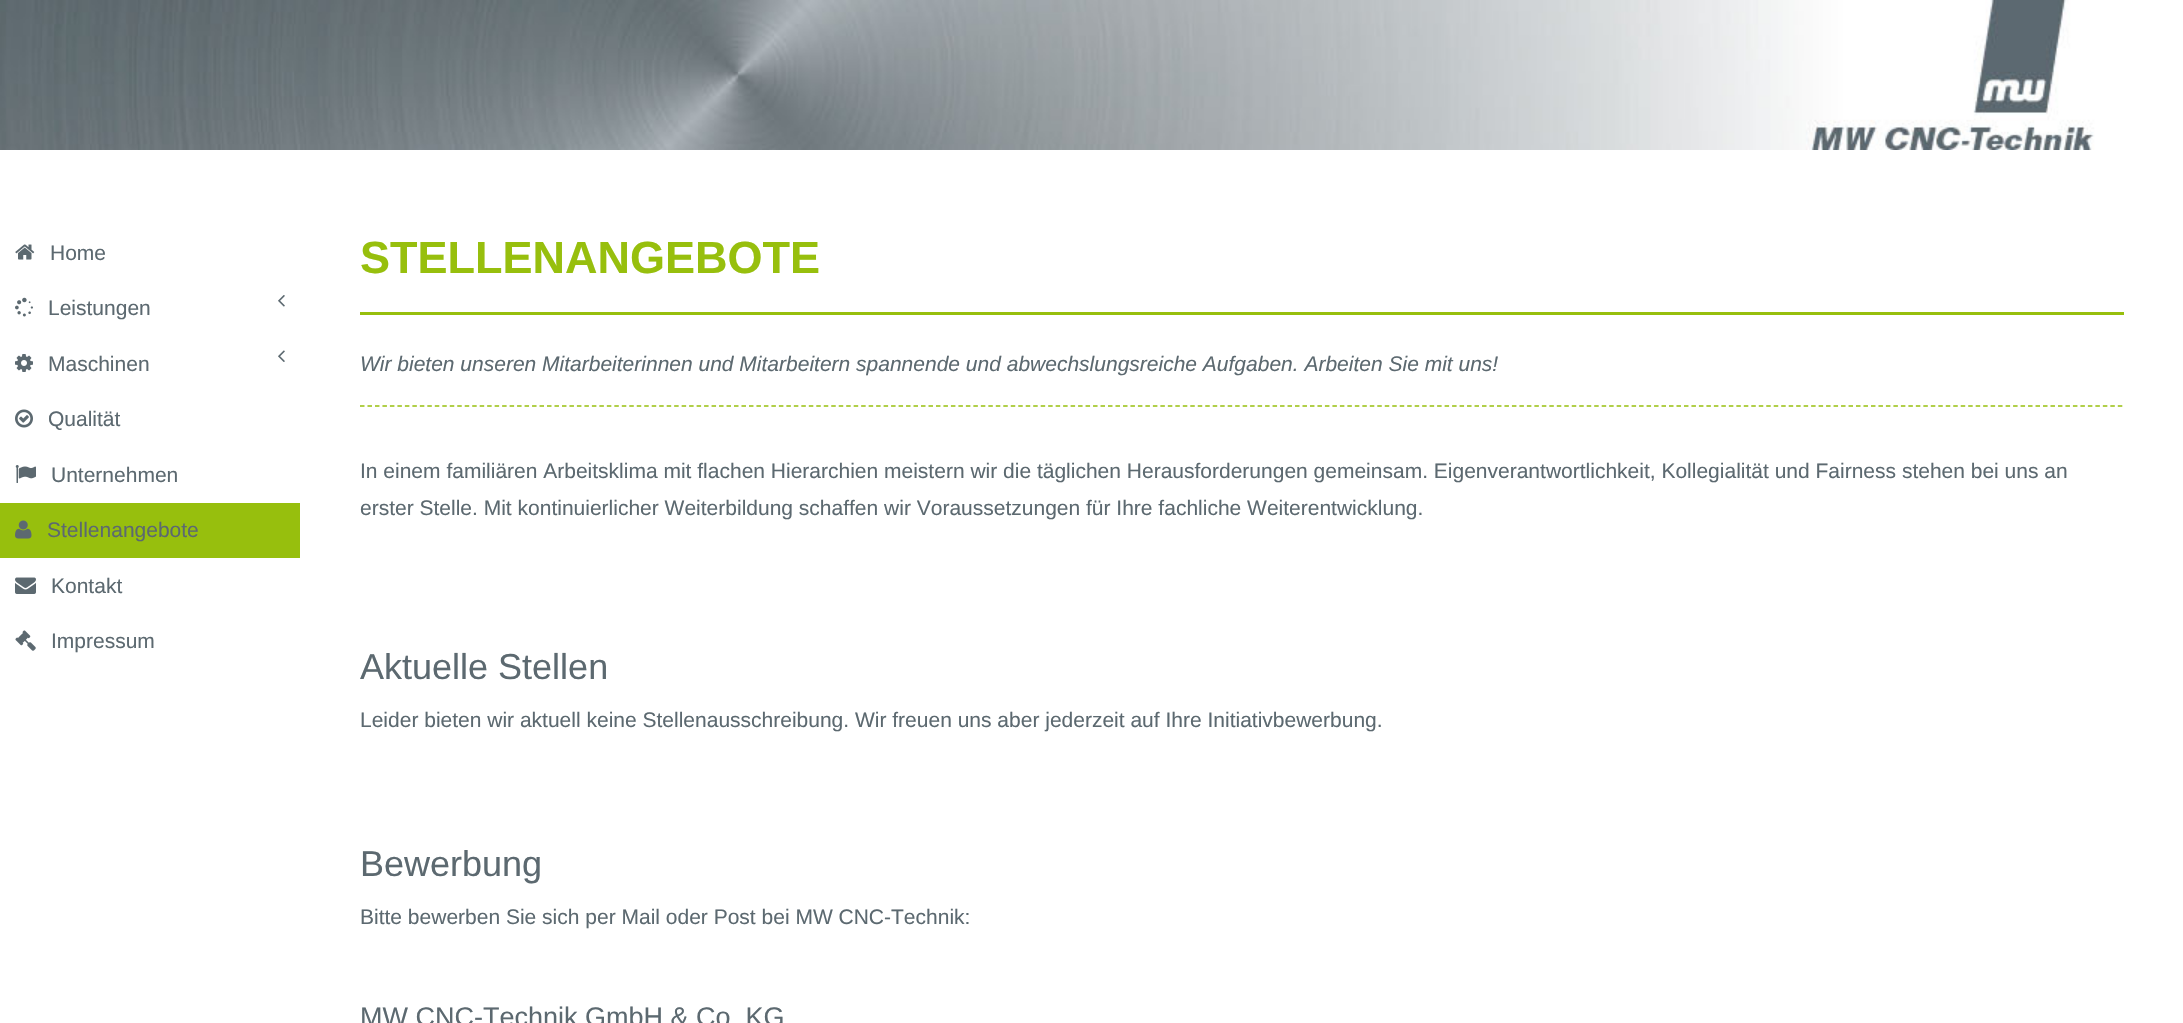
void draw(SkCanvas* c) {
SkPaint p;
p.setAntiAlias(true);
auto F=[&](const char* family, int weight, float size, bool italic = false){SkFontStyle style(weight, SkFontStyle::kNormal_Width,italic ? SkFontStyle::kItalic_Slant : SkFontStyle::kUpright_Slant);SkFont result(fontMgr->matchFamilyStyle(family, style), size);result.setSubpixel(true);return result;};
auto T=[&](const char* s, float x, float y, const SkFont& font){c->drawString(s, x, y, font, p);};
auto R=[&](float x, float y, float w, float h){c->drawRect(SkRect::MakeXYWH(x, y, w, h), p);};
auto I=[&](const char* path, float x, float y, float w, float h){auto image = SkImages::DeferredFromEncodedData(SkData::MakeFromFileName(path));c->drawImageRect(image, SkRect::MakeXYWH(x, y, w, h), SkSamplingOptions());};
auto P=[&](const char* data, bool evenOdd = false){SkPath result = *SkParsePath::FromSVGString(data);if (evenOdd) result.setFillType(SkPathFillType::kEvenOdd);return result;};
c->clear(0xffffffff);
I("1.png",0,0,2183,150);
I("2.png",15,244,20,16);
auto f1 = F("Liberation Sans",400,21);
p.setColor(0xff5c6970);
T("Home",50,260,f1);
I("3.png",15,297,18,20);
T("Leistungen",48,315,f1);
I("4.png",278,295,7,12);
I("5.png",15,354,18,18);
T("Maschinen",48,371,f1);
I("6.png",278,350,7,12);
I("7.png",15,409,18,19);
T("Qualität",48,426,f1);
I("8.png",15,465,21,18);
T("Unternehmen",51,482,f1);
p.setColor(0xff97bf0d);
R(0,503,300,55);
I("9.png",15,520,17,19);
p.setColor(0xff5c6970);
T("Stellenangebote",47,537,f1);
I("10.png",15,577,21,17);
T("Kontakt",51,593,f1);
I("11.png",15,630,21,21);
T("Impressum",51,648,f1);
p.setColor(0xff97bf0d);
R(360,312,1764,3);
auto f2 = F("Liberation Sans",700,45);
T("STELLENANGEBOTE",360,273,f2);
p.setStroke(true);
p.setStrokeWidth(1.5);
p.setPathEffect(SkDashPathEffect::Make({{4.5f,2.98f}}, 0));
c->drawPath(P("M360 406h1764"),p);
p.setPathEffect(nullptr);
auto f3 = F("Liberation Sans",400,21,true);
p.setStroke(false);
p.setColor(0xff5c6970);
T("Wir bieten unseren Mitarbeiterinnen und Mitarbeitern spannende und abwechslungsreiche Aufgaben. Arbeiten Sie mit uns!",360,371,f3);
T("In einem familiären Arbeitsklima mit flachen Hierarchien meistern wir die täglichen Herausforderungen gemeinsam. Eigenverantwortlichkeit, Kollegialität und Fairness stehen bei uns an",360,478,f1);
T("erster Stelle. Mit kontinuierlicher Weiterbildung schaffen wir Voraussetzungen für Ihre fachliche Weiterentwicklung.",360,515,f1);
auto f4 = F("Liberation Sans",400,36);
T("Aktuelle Stellen",360,679,f4);
T("Leider bieten wir aktuell keine Stellenausschreibung. Wir freuen uns aber jederzeit auf Ihre Initiativbewerbung.",360,727,f1);
T("Bewerbung",360,876,f4);
T("Bitte bewerben Sie sich per Mail oder Post bei MW CNC-Technik:",360,924,f1);
auto f5 = F("Liberation Sans",400,27);
T("MW CNC-Technik GmbH & Co. KG",360,1026,f5);
}
